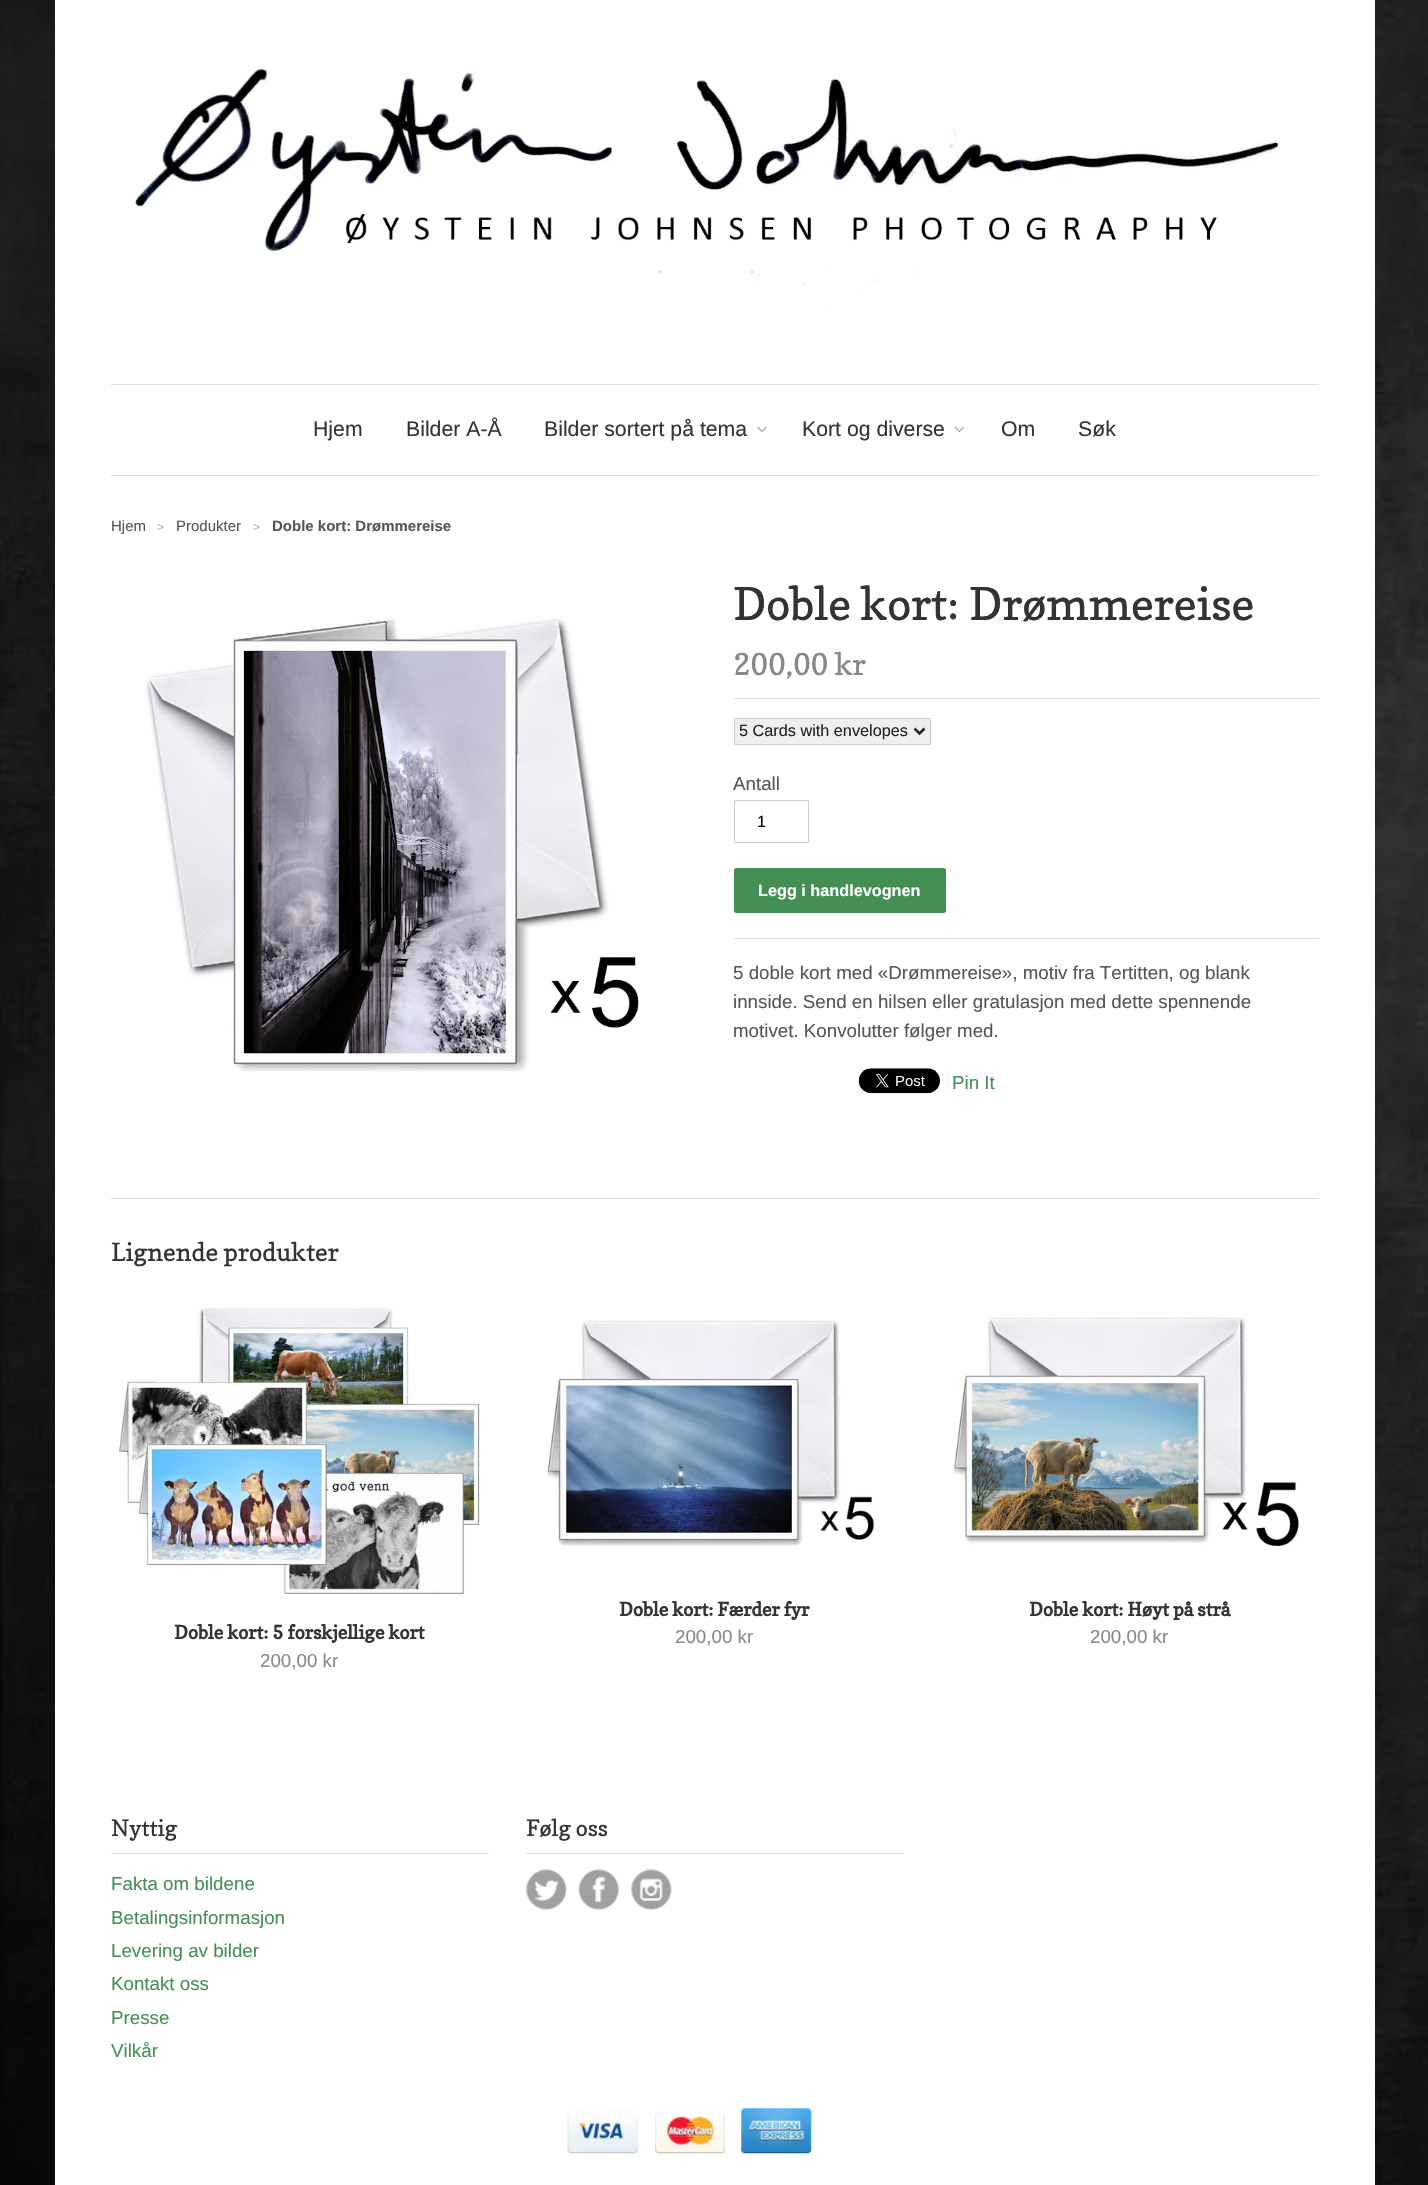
void draw(SkCanvas* c) {
SkPaint p;
p.setAntiAlias(true);
auto F=[&](const char* family, int weight, float size, bool italic = false){SkFontStyle style(weight, SkFontStyle::kNormal_Width,italic ? SkFontStyle::kItalic_Slant : SkFontStyle::kUpright_Slant);SkFont result(fontMgr->matchFamilyStyle(family, style), size);result.setSubpixel(true);return result;};
auto T=[&](const char* s, float x, float y, const SkFont& font){c->drawString(s, x, y, font, p);};
auto R=[&](float x, float y, float w, float h){c->drawRect(SkRect::MakeXYWH(x, y, w, h), p);};
auto Q=[&](float x, float y, float w, float h, float radius){c->drawRoundRect(SkRect::MakeXYWH(x, y, w, h), radius, radius, p);};
auto I=[&](const char* path, float x, float y, float w, float h){auto image = SkImages::DeferredFromEncodedData(SkData::MakeFromFileName(path));c->drawImageRect(image, SkRect::MakeXYWH(x, y, w, h), SkSamplingOptions());};
auto P=[&](const char* data, bool evenOdd = false){SkPath result = *SkParsePath::FromSVGString(data);if (evenOdd) result.setFillType(SkPathFillType::kEvenOdd);return result;};
c->clear(0xffffffff);
I("1.png",0,0,1428,2185);
p.setColor(0xffffffff);
R(55,0,1320,2185);
I("2.png",135,68,1144,240);
p.setColor(0xffdddddd);
R(111,384,1208,1);
R(111,475,1208,1);
auto f1 = F("Liberation Sans",400,21.25);
p.setColor(0xff333333);
T("Hjem",313,436,f1);
T("Bilder A-Å",406,436,f1);
I("3.png",757,427,10,5);
T("Bilder sortert på tema",544,436,f1);
I("4.png",955,427,9,5);
T("Kort og diverse",802,436,f1);
T("Om",1001,436,f1);
T("Søk",1078,436,f1);
auto f2 = F("Liberation Sans",400,15);
p.setColor(0xff555555);
T("Hjem",111,531,f2);
auto f3 = F("Liberation Sans",400,12);
p.setColor(0xffaaaaaa);
T(">",157,531,f3);
p.setColor(0xff555555);
T("Produkter",176,531,f2);
p.setColor(0xffaaaaaa);
T(">",253,531,f3);
auto f4 = F("Liberation Sans",700,15);
p.setColor(0xff555555);
T("Doble kort: Drømmereise",272,531,f4);
I("5.png",145,618,494,454);
auto f5 = F("Copse",400,45);
p.setColor(0xff333333);
T("Doble kort: Drømmereise",733,620,f5);
auto f6 = F("Copse",400,30);
p.setColor(0xff888888);
T("200,00 kr",733,675,f6);
p.setColor(0xffdddddd);
R(734,698,585,1);
R(734,938,585,1);
p.setColor(0xffefefef);
c->drawRoundRect(SkRect::MakeXYWH(734.5,718.5,196,26),.5,.5,p);
p.setStroke(true);
p.setStrokeWidth(1);
p.setColor(0xffcccccc);
c->drawRoundRect(SkRect::MakeXYWH(734.5,718.5,196,26),.5,.5,p);
p.setStrokeWidth(2.5);
p.setColor(0xff222222);
c->drawPath(P("M914.5 728.5l5 5l5-5"),p);
auto f7 = F("Liberation Sans",400,16.25);
p.setStroke(false);
T("5 Cards with envelopes",739,736,f7);
auto f8 = F("Liberation Sans",400,18.75);
p.setColor(0xff555555);
T("Antall",733,790,f8);
p.setStroke(true);
p.setStrokeWidth(1);
p.setColor(0xffcccccc);
c->drawRoundRect(SkRect::MakeXYWH(734.5,800.5,74,42),.5,.5,p);
p.setStroke(false);
p.setColor(0xff000000);
T("1",757,827,f7);
p.setColor(0xff448f53);
Q(734,868,212,45,2.5);
auto f9 = F("Liberation Sans",700,16.25);
p.setColor(0xffffffff);
T("Legg i handlevognen",758,896,f9);
p.setColor(0xff555555);
T("5 doble kort med «Drømmereise», motiv fra Tertitten, og blank",733,979,f8);
T("innside. Send en hilsen eller gratulasjon med dette spennende",733,1008,f8);
T("motivet. Konvolutter følger med.",733,1037,f8);
I("6.png",858,1068,82,26);
p.setColor(0xff448f53);
T("Pin It",952,1089,f8);
p.setColor(0xffdddddd);
R(111,1198,1208,1);
auto f10 = F("Copse",400,25);
p.setColor(0xff333333);
T("Lignende produkter",111,1261,f10);
I("7.png",119,1307,361,287);
auto f11 = F("Copse",700,18.75);
T("Doble kort: 5 forskjellige kort",174,1639,f11);
p.setColor(0xff888888);
T("200,00 kr",260,1667,f8);
I("8.png",545,1320,330,226);
p.setColor(0xff333333);
T("Doble kort: Færder fyr",619,1616,f11);
p.setColor(0xff888888);
T("200,00 kr",675,1643,f8);
I("9.png",954,1317,345,231);
p.setColor(0xff333333);
T("Doble kort: Høyt på strå",1029,1616,f11);
p.setColor(0xff888888);
T("200,00 kr",1090,1643,f8);
p.setColor(0xffdddddd);
R(111,1853,378,1);
auto f12 = F("Copse",400,22.5);
p.setColor(0xff333333);
T("Nyttig",111,1836,f12);
p.setColor(0xff448f53);
T("Fakta om bildene",111,1890,f8);
T("Betalingsinformasjon",111,1924,f8);
T("Levering av bilder",111,1957,f8);
T("Kontakt oss",111,1990,f8);
T("Presse",111,2024,f8);
T("Vilkår",111,2057,f8);
p.setColor(0xffdddddd);
R(526,1853,378,1);
p.setColor(0xff333333);
T("Følg oss",526,1836,f12);
I("10.png",526,1869,41,41);
I("11.png",578,1869,41,41);
I("12.png",631,1869,41,41);
I("13.png",567,2110,71,44);
I("14.png",655,2109,70,45);
I("15.png",741,2108,71,46);
}
